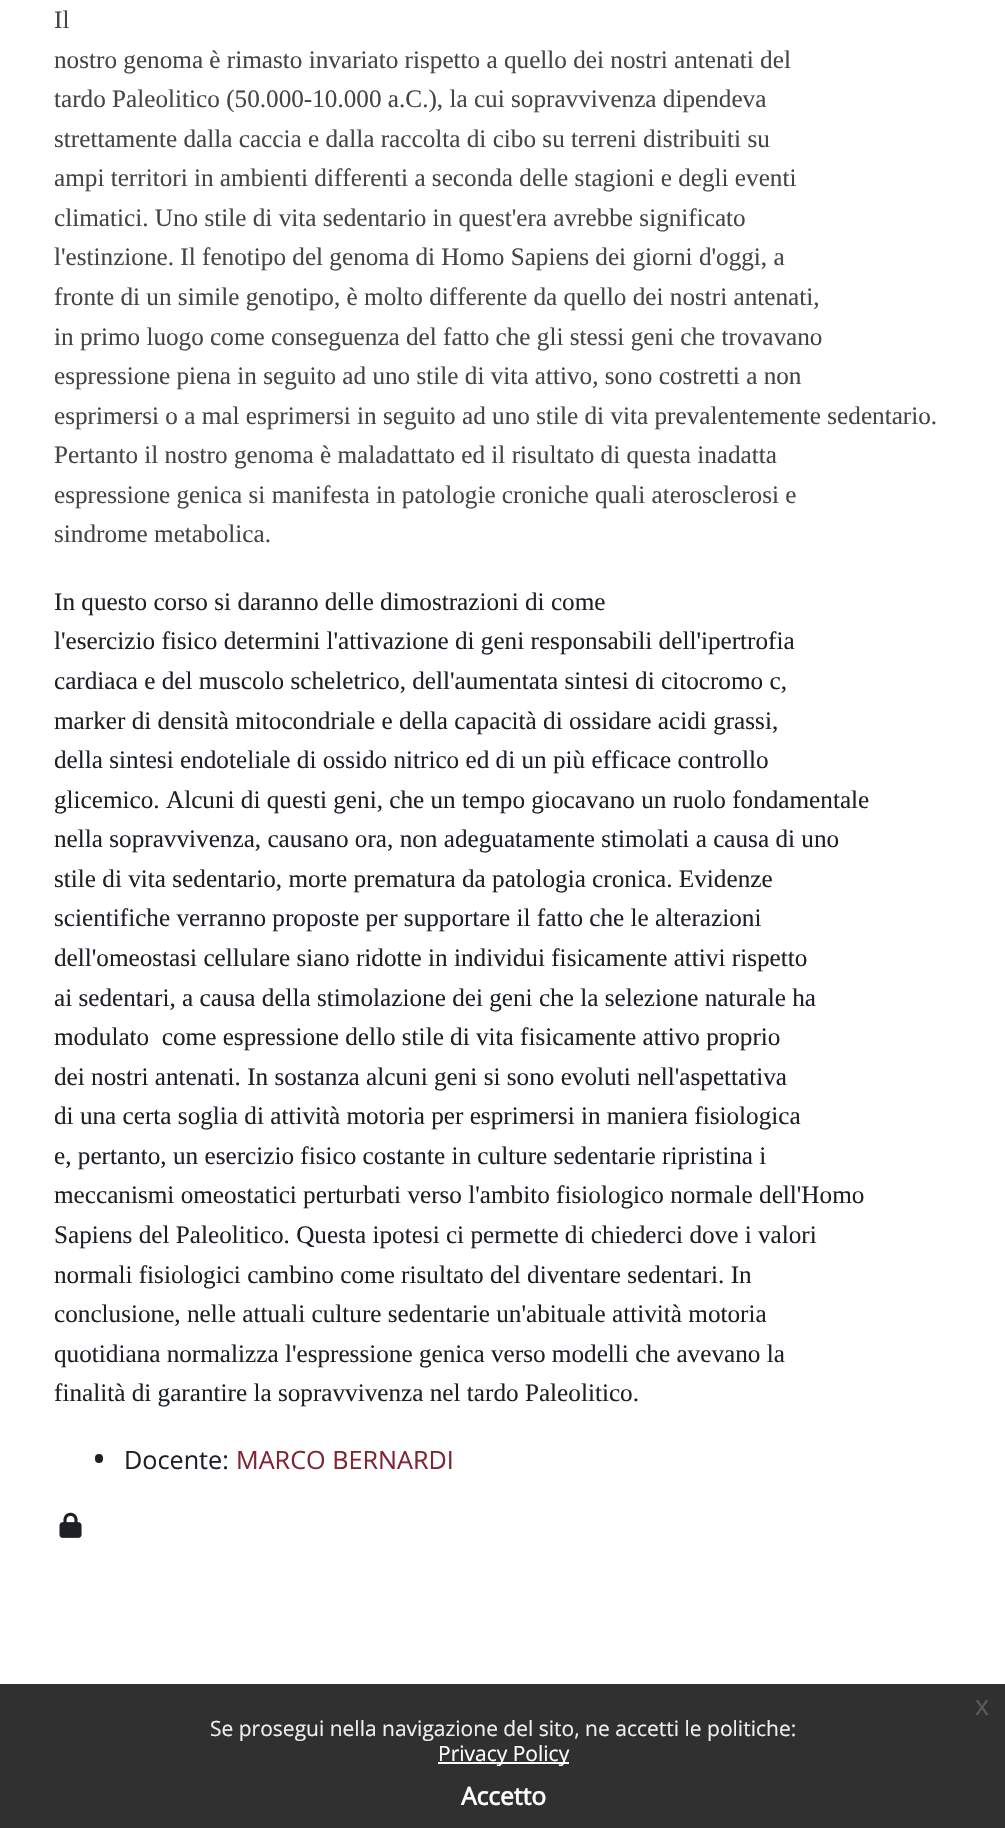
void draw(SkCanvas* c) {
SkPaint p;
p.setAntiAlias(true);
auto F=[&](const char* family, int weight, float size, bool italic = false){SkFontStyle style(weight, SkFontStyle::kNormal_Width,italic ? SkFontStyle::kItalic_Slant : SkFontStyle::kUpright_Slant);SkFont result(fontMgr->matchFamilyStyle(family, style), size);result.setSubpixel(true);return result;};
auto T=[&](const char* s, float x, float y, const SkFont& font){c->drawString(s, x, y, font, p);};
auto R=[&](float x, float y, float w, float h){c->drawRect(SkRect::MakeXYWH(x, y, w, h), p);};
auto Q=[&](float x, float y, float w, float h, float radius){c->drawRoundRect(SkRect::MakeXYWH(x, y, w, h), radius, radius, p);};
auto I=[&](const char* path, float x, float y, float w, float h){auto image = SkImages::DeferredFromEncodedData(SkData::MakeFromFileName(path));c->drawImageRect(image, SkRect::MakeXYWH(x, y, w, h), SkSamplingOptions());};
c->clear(0xffffffff);
auto f1 = F("Liberation Serif",400,25.2);
p.setColor(0xff454545);
T("Il",54,28,f1);
T("nostro genoma è rimasto invariato rispetto a quello dei nostri antenati del",54,68,f1);
T("tardo Paleolitico (50.000-10.000 a.C.), la cui sopravvivenza dipendeva",54,107,f1);
T("strettamente dalla caccia e dalla raccolta di cibo su terreni distribuiti su",54,147,f1);
T("ampi territori in ambienti differenti a seconda delle stagioni e degli eventi",54,186,f1);
T("climatici. Uno stile di vita sedentario in quest'era avrebbe significato",54,226,f1);
T("l'estinzione. Il fenotipo del genoma di Homo Sapiens dei giorni d'oggi, a",54,265,f1);
T("fronte di un simile genotipo, è molto differente da quello dei nostri antenati,",54,305,f1);
T("in primo luogo come conseguenza del fatto che gli stessi geni che trovavano",54,345,f1);
T("espressione piena in seguito ad uno stile di vita attivo, sono costretti a non",54,384,f1);
T("esprimersi o a mal esprimersi in seguito ad uno stile di vita prevalentemente sedentario.",54,424,f1);
T("Pertanto il nostro genoma è maladattato ed il risultato di questa inadatta",54,463,f1);
T("espressione genica si manifesta in patologie croniche quali aterosclerosi e",54,503,f1);
T("sindrome metabolica.",54,542,f1);
p.setColor(0xff1d2125);
T("In questo corso si daranno delle dimostrazioni di come",54,610,f1);
T("l'esercizio fisico determini l'attivazione di geni responsabili dell'ipertrofia",54,649,f1);
T("cardiaca e del muscolo scheletrico, dell'aumentata sintesi di citocromo c,",54,689,f1);
T("marker di densità mitocondriale e della capacità di ossidare acidi grassi,",54,729,f1);
T("della sintesi endoteliale di ossido nitrico ed di un più efficace controllo",54,768,f1);
T("glicemico. Alcuni di questi geni, che un tempo giocavano un ruolo fondamentale",54,808,f1);
T("nella sopravvivenza, causano ora, non adeguatamente stimolati a causa di uno",54,847,f1);
T("stile di vita sedentario, morte prematura da patologia cronica. Evidenze",54,887,f1);
T("scientifiche verranno proposte per supportare il fatto che le alterazioni",54,926,f1);
T("dell'omeostasi cellulare siano ridotte in individui fisicamente attivi rispetto",54,966,f1);
T("ai sedentari, a causa della stimolazione dei geni che la selezione naturale ha",54,1006,f1);
T("modulato  come espressione dello stile di vita fisicamente attivo proprio",54,1045,f1);
T("dei nostri antenati. In sostanza alcuni geni si sono evoluti nell'aspettativa",54,1085,f1);
T("di una certa soglia di attività motoria per esprimersi in maniera fisiologica",54,1124,f1);
T("e, pertanto, un esercizio fisico costante in culture sedentarie ripristina i",54,1164,f1);
T("meccanismi omeostatici perturbati verso l'ambito fisiologico normale dell'Homo",54,1203,f1);
T("Sapiens del Paleolitico. Questa ipotesi ci permette di chiederci dove i valori",54,1243,f1);
T("normali fisiologici cambino come risultato del diventare sedentari. In",54,1283,f1);
T("conclusione, nelle attuali culture sedentarie un'abituale attività motoria",54,1322,f1);
T("quotidiana normalizza l'espressione genica verso modelli che avevano la",54,1362,f1);
T("finalità di garantire la sopravvivenza nel tardo Paleolitico.",54,1401,f1);
Q(95,1454,8,9,4);
auto f2 = F("Open Sans",400,25.2);
T("Docente:",124,1469,f2);
p.setColor(0xff822433);
T("MARCO BERNARDI",236,1469,f2);
I("1.png",59,1512,23,26);
p.setColor(0xff303030);
R(0,1684,1005,144);
auto f3 = F("Liberation Sans",400,28);
p.setColor(0xff595959);
T("x",975,1715,f3);
auto f4 = F("Open Sans",400,21);
p.setColor(0xffefefef);
T("Se prosegui nella navigazione del sito, ne accetti le politiche:",210,1736,f4);
p.setColor(0xffffffff);
R(438,1762,131,2);
T("Privacy Policy",438,1761,f4);
auto f5 = F("Open Sans",700,24.5);
T("Accetto",461,1805,f5);
}
